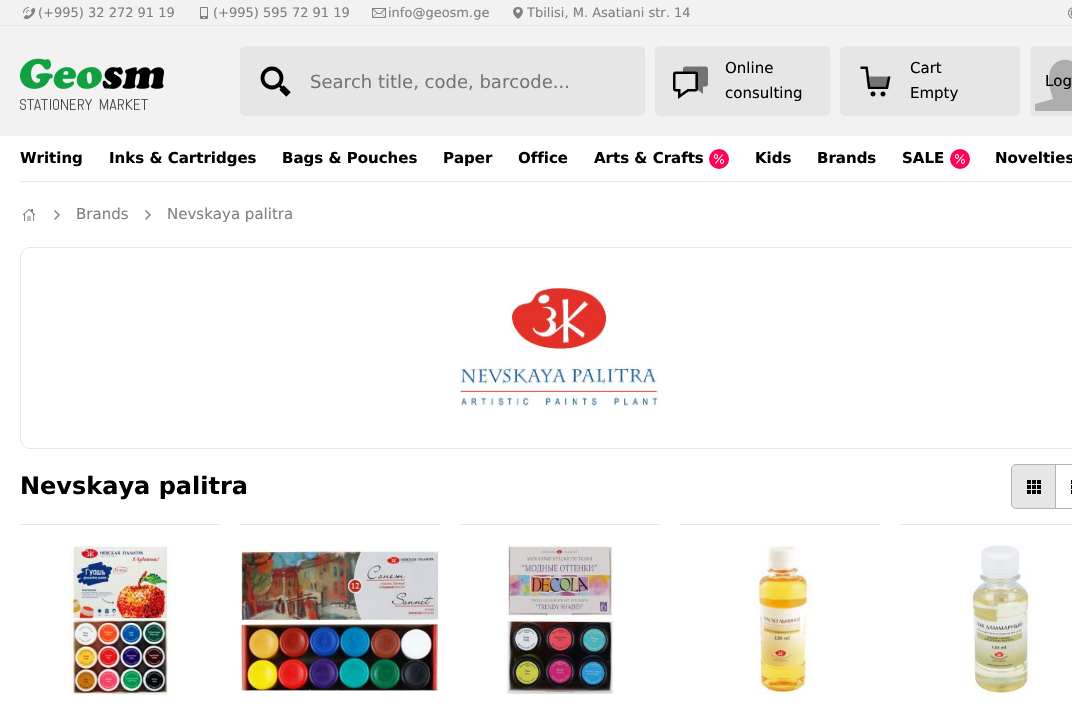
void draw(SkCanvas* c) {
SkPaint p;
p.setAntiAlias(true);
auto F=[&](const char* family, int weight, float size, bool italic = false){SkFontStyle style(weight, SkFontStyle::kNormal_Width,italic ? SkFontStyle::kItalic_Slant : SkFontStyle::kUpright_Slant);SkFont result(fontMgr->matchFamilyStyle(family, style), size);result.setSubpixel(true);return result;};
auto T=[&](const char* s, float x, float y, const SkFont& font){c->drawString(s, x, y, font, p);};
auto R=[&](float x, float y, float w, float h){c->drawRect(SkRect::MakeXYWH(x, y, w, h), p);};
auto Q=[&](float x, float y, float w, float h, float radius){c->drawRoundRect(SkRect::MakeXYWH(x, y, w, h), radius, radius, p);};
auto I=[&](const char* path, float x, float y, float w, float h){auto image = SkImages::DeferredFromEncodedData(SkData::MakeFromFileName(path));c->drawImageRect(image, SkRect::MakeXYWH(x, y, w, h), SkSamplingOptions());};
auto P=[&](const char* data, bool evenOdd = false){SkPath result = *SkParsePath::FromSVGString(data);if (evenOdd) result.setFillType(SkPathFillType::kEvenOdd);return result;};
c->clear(0xfff2f2f2);
p.setColor(0xffe6e6e6);
R(0,25,1072,1);
I("1.png",23,7,12,12);
auto f1 = F("DejaVu Sans",400,13);
p.setColor(0xff808080);
T("(+995) 32 272 91 19",38,17,f1);
I("2.png",200,7,8,12);
T("(+995) 595 72 91 19",213,17,f1);
I("3.png",372,8,14,10);
T("info@geosm.ge",388,17,f1);
I("4.png",513,7,10,12);
T("Tbilisi, M. Asatiani str. 14",527,17,f1);
I("5.png",1068,7,4,12);
I("6.png",20,58,144,52);
p.setColor(0xffe6e6e6);
Q(240,46,405,70,5);
p.setStroke(true);
p.setStrokeWidth(3.8);
p.setColor(0xff000000);
c->drawCircle(272,78,9.5,p);
p.setStrokeWidth(2.5);
c->drawPath(P("M278 84l5 5"),p);
p.setStrokeWidth(6.2);
c->drawPath(P("M281.5 87.5l7 7"),p);
auto f2 = F("DejaVu Sans",400,18);
p.setStroke(false);
p.setColor(0xff757575);
T("Search title, code, barcode...",310,88,f2);
p.setColor(0xffe6e6e6);
Q(655,46,175,70,5);
I("7.png",673,66,35,33);
auto f3 = F("DejaVu Sans",400,15);
p.setColor(0xff000000);
T("Online",725,73,f3);
T("consulting",725,98,f3);
p.setColor(0xffe6e6e6);
Q(840,46,180,70,5);
I("8.png",860,66,31,31);
p.setColor(0xff000000);
T("Cart",910,73,f3);
T("Empty",910,98,f3);
p.setColor(0xffe6e6e6);
c->drawPath(P("M1035 46h37v70h-37c-3 0-5-2-5-5v-60c0-3 2-5 5-5z"),p);
p.setColor(0xffadadad);
c->drawPath(P("M1035 104l18-5c-3-9-6-19-3-28c5-15 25-15 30 0c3 9 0 19-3 28l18 5v7h-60z"),p);
p.setColor(0xff000000);
T("Log",1045,86,f3);
p.setColor(0xffffffff);
R(0,136,1072,575);
p.setColor(0xffe6e6e6);
R(20,181,1052,1);
auto f4 = F("DejaVu Sans",700,15);
p.setColor(0xff000000);
T("Writing",20,163,f4);
T("Inks & Cartridges",109,163,f4);
T("Bags & Pouches",282,163,f4);
T("Paper",443,163,f4);
T("Office",518,163,f4);
T("Arts & Crafts",594,163,f4);
p.setColor(0xffff0055);
c->drawCircle(719,159,10,p);
I("9.png",714,154,10,10);
p.setColor(0xff000000);
T("Kids",755,163,f4);
T("Brands",817,163,f4);
T("SALE",902,163,f4);
p.setColor(0xffff0055);
c->drawCircle(960,159,10,p);
I("9.png",955,154,10,10);
p.setColor(0xff000000);
T("Novelties",995,163,f4);
I("10.png",22,208,14,13);
I("11.png",54,210,6,10);
p.setColor(0xff808080);
T("Brands",76,219,f3);
I("11.png",145,210,6,10);
T("Nevskaya palitra",167,219,f3);
p.setStroke(true);
p.setStrokeWidth(1);
p.setColor(0xffe6e6e6);
c->drawRoundRect(SkRect::MakeXYWH(20.5,247.5,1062,201),9.5,9.5,p);
I("12.png",457,288,206,120);
auto f5 = F("DejaVu Sans",700,24);
p.setStroke(false);
p.setColor(0xff000000);
T("Nevskaya palitra",20,494,f5);
p.setColor(0xffe6e6e6);
c->drawPath(P("M1016 464.5h39.5v44h-39.5c-2.5 0-4.5-2-4.5-4.5v-35c0-2.5 2-4.5 4.5-4.5z"),p);
p.setStroke(true);
p.setColor(0xffb3b3b3);
c->drawPath(P("M1016 464.5h39.5v44h-39.5c-2.5 0-4.5-2-4.5-4.5v-35c0-2.5 2-4.5 4.5-4.5z"),p);
I("13.png",1027,480,14,14);
c->drawRect(SkRect::MakeXYWH(1055.5,464.5,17,44),p);
I("14.png",1071,480,1,14);
p.setStroke(false);
p.setColor(0xffe6e6e6);
R(20,524,200,1);
I("15.png",70,545,100,150);
R(240,524,200,1);
I("16.png",240,549,200,142);
R(460,524,200,1);
I("17.png",506,545,108,150);
R(680,524,200,1);
I("18.png",754,545,58,150);
R(900,524,172,1);
I("19.png",970,545,62,149);
}
